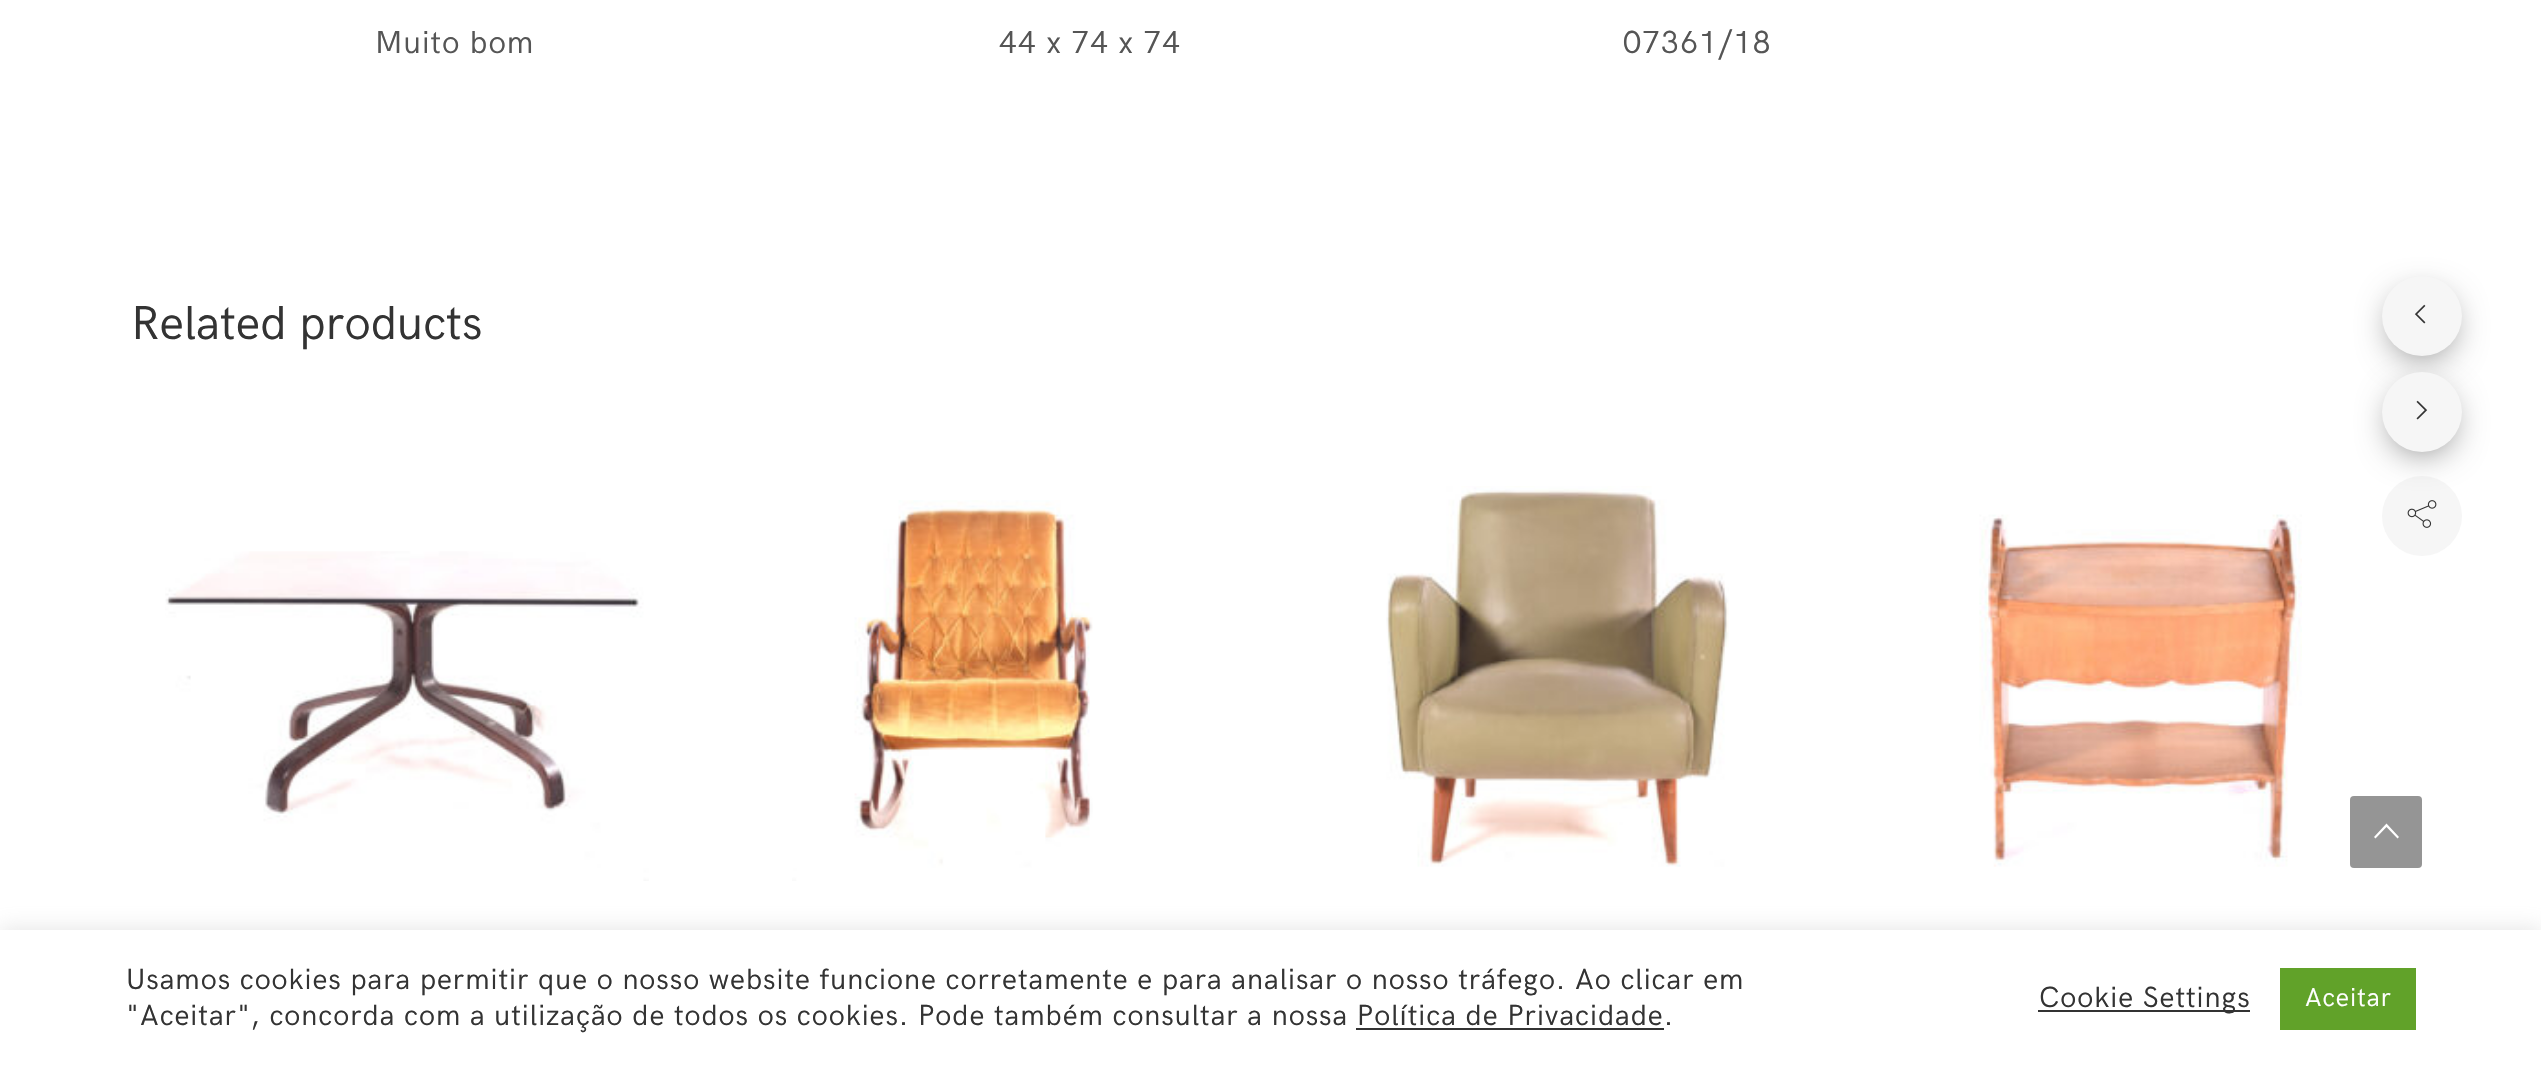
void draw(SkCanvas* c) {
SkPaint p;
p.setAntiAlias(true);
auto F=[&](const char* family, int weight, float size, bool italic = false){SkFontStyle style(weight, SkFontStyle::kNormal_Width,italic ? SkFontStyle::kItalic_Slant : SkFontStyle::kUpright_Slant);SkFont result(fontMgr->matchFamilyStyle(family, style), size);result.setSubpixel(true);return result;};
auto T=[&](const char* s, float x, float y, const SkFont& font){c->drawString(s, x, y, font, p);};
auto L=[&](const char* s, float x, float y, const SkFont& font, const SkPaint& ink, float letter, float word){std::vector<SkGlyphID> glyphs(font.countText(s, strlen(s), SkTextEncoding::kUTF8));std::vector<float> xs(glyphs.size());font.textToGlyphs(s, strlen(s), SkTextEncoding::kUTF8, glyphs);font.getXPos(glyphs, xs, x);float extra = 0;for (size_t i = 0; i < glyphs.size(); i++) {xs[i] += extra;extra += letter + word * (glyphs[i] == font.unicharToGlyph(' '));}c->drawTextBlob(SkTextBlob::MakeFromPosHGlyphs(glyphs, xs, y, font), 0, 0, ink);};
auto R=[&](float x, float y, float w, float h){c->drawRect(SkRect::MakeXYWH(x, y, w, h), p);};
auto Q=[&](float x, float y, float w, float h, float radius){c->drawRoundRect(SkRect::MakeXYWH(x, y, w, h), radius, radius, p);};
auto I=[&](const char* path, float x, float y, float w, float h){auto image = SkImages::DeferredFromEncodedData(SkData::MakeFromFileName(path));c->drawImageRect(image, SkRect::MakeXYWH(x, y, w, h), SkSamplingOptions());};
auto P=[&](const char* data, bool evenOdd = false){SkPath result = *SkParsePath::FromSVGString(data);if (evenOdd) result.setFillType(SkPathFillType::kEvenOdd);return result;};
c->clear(0xffffffff);
auto f1 = F("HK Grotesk",400,32);
p.setColor(0xff555555);
L("Muito bom",375,53,f1,p,.96,0);
L("44 x 74 x 74",999,53,f1,p,.96,0);
L("07361/18",1623,53,f1,p,.96,0);
auto f2 = F("HK Grotesk",400,48);
p.setColor(0xff333333);
T("Related products",131,339,f2);
I("1.png",165,551,484,330);
I("2.png",792,500,301,381);
I("3.png",1386,486,343,381);
I("4.png",1979,514,323,353);
p.setColor(0x99000000);
p.setMaskFilter(SkMaskFilter::MakeBlur(kNormal_SkBlurStyle, 18));
c->drawRoundRect(SkRect::MakeXYWH(2394,298,56,56),28,28,p);
p.setMaskFilter(nullptr);
p.setColor(0xfff6f6f6);
c->drawCircle(2422,316,40,p);
I("5.png",2414,304,12,20);
c->drawCircle(2422,516,40,p);
I("7.png",2407,500,30,28);
p.setColor(0x99000000);
p.setMaskFilter(SkMaskFilter::MakeBlur(kNormal_SkBlurStyle, 18));
c->drawRoundRect(SkRect::MakeXYWH(2394,394,56,56),28,28,p);
p.setMaskFilter(nullptr);
p.setColor(0xfff6f6f6);
c->drawCircle(2422,412,40,p);
I("6.png",2416,400,12,20);
p.setColor(0xff959595);
Q(2350,796,72,72,4);
p.setColor(0xffffffff);
c->drawPath(P("M2397.5 838.5l-11-11.5l-11 11.5l-1.5-1.5l12.5-13.5l12.5 13.5z"),p);
p.setColor(0x4dacabab);
p.setMaskFilter(SkMaskFilter::MakeBlur(kNormal_SkBlurStyle, 10));
c->drawRect(SkRect::MakeXYWH(0,928,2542,138),p);
p.setMaskFilter(nullptr);
p.setColor(0xffffffff);
R(0,930,2541,137);
auto f3 = F("HK Grotesk",400,29.33);
p.setColor(0xff333333);
L("Usamos cookies para permitir que o nosso website funcione corretamente e para analisar o nosso tráfego. Ao clicar em",126,989,f3,p,.96,0);
L("\"Aceitar\", concorda com a utilização de todos os cookies. Pode também consultar a nossa Política de Privacidade.",126,1025,f3,p,.96,0);
R(1356,1028,308,2);
R(2038,1010,212,2);
L("Cookie Settings",2039,1007,f3,p,.96,0);
p.setColor(0xff61a229);
R(2280,968,136,62);
auto f4 = F("HK Grotesk",400,26);
p.setColor(0xffffffff);
L("Aceitar",2305,1006,f4,p,.96,0);
}
